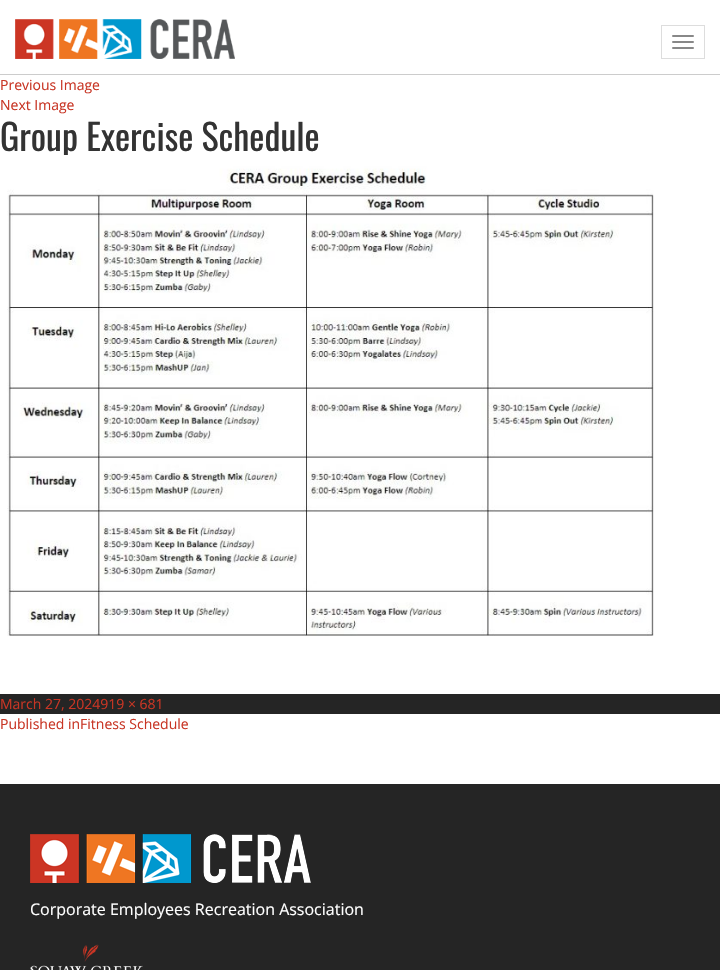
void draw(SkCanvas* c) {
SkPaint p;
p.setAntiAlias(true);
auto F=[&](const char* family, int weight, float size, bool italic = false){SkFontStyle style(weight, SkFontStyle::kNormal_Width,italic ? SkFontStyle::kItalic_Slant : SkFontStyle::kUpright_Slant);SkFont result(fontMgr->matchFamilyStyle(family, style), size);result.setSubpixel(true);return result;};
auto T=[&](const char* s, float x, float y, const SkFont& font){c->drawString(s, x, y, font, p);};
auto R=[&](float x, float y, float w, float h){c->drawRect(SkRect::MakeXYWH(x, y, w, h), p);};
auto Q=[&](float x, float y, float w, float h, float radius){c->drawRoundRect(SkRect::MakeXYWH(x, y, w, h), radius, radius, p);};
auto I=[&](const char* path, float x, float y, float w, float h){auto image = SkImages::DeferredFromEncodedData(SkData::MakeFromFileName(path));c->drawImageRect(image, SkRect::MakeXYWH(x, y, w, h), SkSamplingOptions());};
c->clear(0xffffffff);
p.setColor(0xffcccccc);
R(0,74,720,1);
I("1.png",15,19,220,40);
p.setStroke(true);
p.setStrokeWidth(1);
p.setColor(0xffdddddd);
c->drawRect(SkRect::MakeXYWH(661.5,25.5,43,33),p);
p.setStroke(false);
p.setColor(0xff888888);
Q(672,35,22,2,1);
Q(672,41,22,2,1);
Q(672,47,22,2,1);
auto f1 = F("Open Sans",400,14);
p.setColor(0xffc83524);
T("Previous Image",0,90,f1);
T("Next Image",0,110,f1);
auto f2 = F("Oswald",400,36);
p.setColor(0xff333333);
T("Group Exercise Schedule",0,151,f2);
I("2.png",7,155,647,481);
p.setColor(0xff252525);
R(0,694,720,20);
p.setColor(0xffc83524);
T("March 27, 2024919 × 681",0,709,f1);
T("Published inFitness Schedule",0,729,f1);
p.setColor(0xff252525);
R(0,784,720,186);
I("3.png",30,834,281,49);
auto f3 = F("Open Sans",400,16);
p.setColor(0xffffffff);
T("Corporate Employees Recreation Association",30,915,f3);
I("4.png",30,944,113,26);
}
